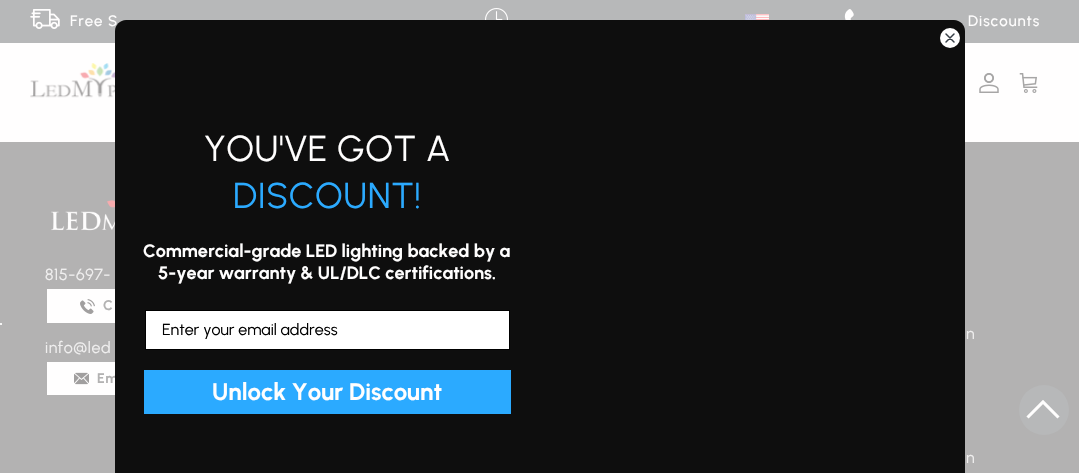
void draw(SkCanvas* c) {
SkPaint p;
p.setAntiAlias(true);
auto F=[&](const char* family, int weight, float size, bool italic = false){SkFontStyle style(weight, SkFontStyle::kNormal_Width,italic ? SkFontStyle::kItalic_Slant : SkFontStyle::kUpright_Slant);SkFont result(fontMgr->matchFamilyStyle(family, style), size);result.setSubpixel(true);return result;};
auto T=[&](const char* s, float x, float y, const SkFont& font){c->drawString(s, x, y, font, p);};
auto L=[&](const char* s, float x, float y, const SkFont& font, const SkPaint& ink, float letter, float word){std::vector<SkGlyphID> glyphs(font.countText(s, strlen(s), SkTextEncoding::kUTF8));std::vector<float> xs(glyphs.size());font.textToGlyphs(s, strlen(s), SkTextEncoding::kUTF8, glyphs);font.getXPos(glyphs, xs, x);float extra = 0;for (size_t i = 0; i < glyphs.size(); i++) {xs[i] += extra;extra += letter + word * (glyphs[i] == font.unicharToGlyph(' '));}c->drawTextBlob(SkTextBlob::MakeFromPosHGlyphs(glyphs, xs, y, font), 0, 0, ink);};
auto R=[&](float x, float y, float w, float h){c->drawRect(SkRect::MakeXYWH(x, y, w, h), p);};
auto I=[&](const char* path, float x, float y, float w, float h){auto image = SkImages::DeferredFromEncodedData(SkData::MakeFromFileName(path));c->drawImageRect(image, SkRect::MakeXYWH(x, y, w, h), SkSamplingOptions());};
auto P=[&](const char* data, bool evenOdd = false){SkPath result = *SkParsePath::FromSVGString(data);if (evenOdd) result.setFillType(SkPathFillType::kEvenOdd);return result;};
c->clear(0xfffffefe);
p.setColor(0xffb7b8b9);
R(0,0,1079,43);
I("1.png",30,9,30,20);
auto f1 = F("Urbanist",500,15);
p.setColor(0xfffffefe);
L("Free S",70,26,f1,p,1,0);
I("2.png",485,8,23,12);
I("3.png",745,14,24,6);
I("4.png",844,9,10,11);
L("Discounts",968,26,f1,p,1,0);
I("5.png",30,63,85,35);
I("6.png",979,73,20,20);
I("7.png",1019,73,19,20);
p.setColor(0xffb3b2b2);
R(0,142,1079,331);
p.setColor(0xffb7b8b9);
c->drawCircle(1044,410,25,p);
p.setStroke(true);
p.setStrokeWidth(3.1);
p.setColor(0xfffffefe);
c->drawPath(P("M1027.5 417.5l15.5-15.5l15.5 15.5"),p);
p.setStroke(false);
R(47,362,68,33);
auto f2 = F("Urbanist",700,14);
p.setColor(0xffb3b2b2);
L("Em",97,383,f2,p,.6,0);
p.setColor(0xff0e0e0e);
c->drawPath(P("M126 20h828c6 0 11 5 11 11v442h-850v-442c0-6 5-11 11-11z"),p);
p.setColor(0xffffffff);
c->drawCircle(950,38,10,p);
p.setStroke(true);
p.setStrokeWidth(1.5);
p.setStrokeCap(SkPaint::kRound_Cap);
p.setStrokeJoin(SkPaint::kRound_Join);
p.setColor(0xff373f47);
c->drawPath(P("M946 34l8 8m-8 0l8-8z"),p);
auto f3 = F("Urbanist",400,36);
p.setStroke(false);
p.setColor(0xfffffefe);
L("YOU'VE GOT A",204,161,f3,p,.6,0);
p.setColor(0xff2baaff);
L("DISCOUNT!",233,208,f3,p,.6,0);
auto f4 = F("Urbanist",700,18);
p.setColor(0xfffffefe);
T("Commercial-grade LED lighting backed by a",143,257,f4);
T("5-year warranty & UL/DLC certifications.",158,279,f4);
p.setColor(0xffffffff);
c->drawRect(SkRect::MakeXYWH(145.5,310.5,364,39),p);
p.setStroke(true);
p.setStrokeWidth(1);
p.setStrokeCap(SkPaint::kButt_Cap);
p.setStrokeJoin(SkPaint::kMiter_Join);
p.setColor(0xff000000);
c->drawRect(SkRect::MakeXYWH(145.5,310.5,364,39),p);
auto f5 = F("Urbanist",400,16);
p.setStroke(false);
T("Enter your email address",162,335,f5);
p.setColor(0xff2baaff);
R(144,370,367,44);
auto f6 = F("Urbanist",700,24);
p.setColor(0xfffffefe);
T("Unlock Your Discount",212,400,f6);
p.setColor(0xfff5f5f5);
R(0,323,2,2);
I("8.png",51,200,64,31);
p.setColor(0xfff0efef);
L("815-697-",45,280,f5,p,.6,0);
p.setColor(0xfffffefe);
R(47,289,68,34);
I("9.png",80,299,15,15);
p.setColor(0xffb3b2b2);
L("C",103,310,f2,p,.6,0);
p.setColor(0xfff0efef);
L("info@led",45,353,f5,p,.6,0);
I("10.png",74,372,15,13);
L("n",966,339,f5,p,.6,0);
L("n",966,463,f5,p,.6,0);
}
